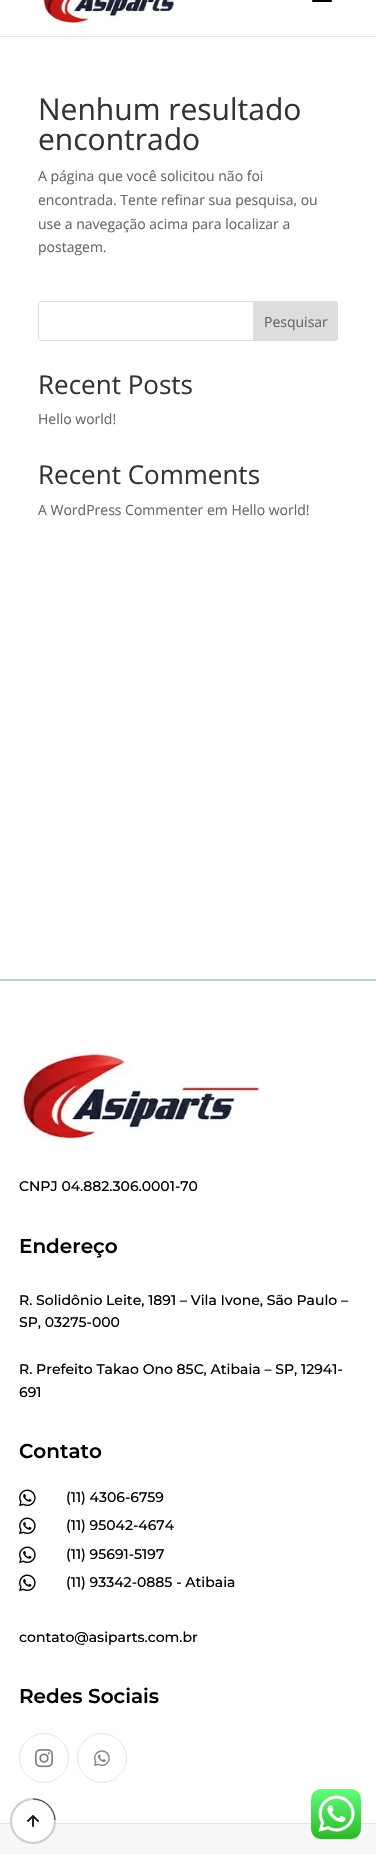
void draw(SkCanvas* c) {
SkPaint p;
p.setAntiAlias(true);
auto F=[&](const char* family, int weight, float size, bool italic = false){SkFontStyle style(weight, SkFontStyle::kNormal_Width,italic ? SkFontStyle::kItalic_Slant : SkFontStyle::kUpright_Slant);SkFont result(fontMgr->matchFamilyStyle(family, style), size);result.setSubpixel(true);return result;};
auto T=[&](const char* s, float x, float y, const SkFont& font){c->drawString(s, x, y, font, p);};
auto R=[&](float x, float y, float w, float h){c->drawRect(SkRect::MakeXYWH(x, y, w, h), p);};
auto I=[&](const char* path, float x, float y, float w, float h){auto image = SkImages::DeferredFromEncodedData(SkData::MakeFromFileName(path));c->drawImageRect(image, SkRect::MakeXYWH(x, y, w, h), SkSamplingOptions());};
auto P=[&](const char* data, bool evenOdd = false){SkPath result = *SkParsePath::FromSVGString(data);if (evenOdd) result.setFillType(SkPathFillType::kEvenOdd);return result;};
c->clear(0xffffffff);
p.setColor(0xffe6e6e6);
R(0,36,376,1);
I("1.png",41,0,135,25);
I("2.png",312,0,20,2);
auto f1 = F("Open Sans",400,30);
p.setColor(0xff333333);
T("Nenhum resultado",38,120,f1);
T("encontrado",38,150,f1);
auto f2 = F("Open Sans",400,14);
p.setColor(0xff666666);
T("A página que você solicitou não foi",38,181,f2);
T("encontrada. Tente refinar sua pesquisa, ou",38,205,f2);
T("use a navegação acima para localizar a",38,229,f2);
T("postagem.",38,252,f2);
p.setStroke(true);
p.setStrokeWidth(1);
p.setColor(0xffdddddd);
c->drawRoundRect(SkRect::MakeXYWH(38.5,301.5,299,39),2.5,2.5,p);
p.setStroke(false);
c->drawPath(P("M253.5 301.5h81.5c1.5 0 2.5 1 2.5 2.5v34c0 1.5-1 2.5-2.5 2.5h-81.5z"),p);
p.setStroke(true);
c->drawPath(P("M253.5 301.5h81.5c1.5 0 2.5 1 2.5 2.5v34c0 1.5-1 2.5-2.5 2.5h-81.5z"),p);
p.setStroke(false);
p.setColor(0xff666666);
T("Pesquisar",264,327,f2);
auto f3 = F("Open Sans",400,26);
p.setColor(0xff333333);
T("Recent Posts",38,394,f3);
p.setColor(0xff666666);
T("Hello world!",38,424,f2);
p.setColor(0xff333333);
T("Recent Comments",38,484,f3);
p.setColor(0xff666666);
T("A WordPress Commenter em Hello world!",38,515,f2);
p.setColor(0xffb9cdd3);
R(0,979,376,2);
I("3.png",19,1052,242,90);
auto f4 = F("Montserrat",500,14);
p.setColor(0xff000000);
T("CNPJ 04.882.306.0001-70",19,1191,f4);
auto f5 = F("Montserrat",600,20);
T("Endereço",19,1253,f5);
T("R. Solidônio Leite, 1891 – Vila Ivone, São Paulo –",19,1305,f4);
T("SP, 03275-000",19,1327,f4);
T("R. Prefeito Takao Ono 85C, Atibaia – SP, 12941-",19,1374,f4);
T("691",19,1397,f4);
T("Contato",19,1458,f5);
I("4.png",19,1489,17,18);
T("(11) 4306-6759",66,1502,f4);
I("4.png",19,1517,17,18);
T("(11) 95042-4674",66,1530,f4);
I("4.png",19,1546,17,18);
T("(11) 95691-5197",66,1559,f4);
I("4.png",19,1574,17,18);
T("(11) 93342-0885 - Atibaia",66,1587,f4);
T("contato@asiparts.com.br",19,1642,f4);
T("Redes Sociais",19,1703,f5);
p.setStroke(true);
p.setColor(0xffe3e3e3);
c->drawCircle(44,1758,24.5,p);
I("5.png",35,1749,18,19);
c->drawCircle(102,1758,24.5,p);
I("6.png",94,1750,16,16);
p.setStroke(false);
p.setColor(0xfff7f7f7);
R(0,1824,376,30);
p.setColor(0xffe3e3e3);
R(0,1823,376,1);
p.setColor(0xffffffff);
c->drawCircle(33,1821,22,p);
p.setStroke(true);
p.setStrokeWidth(2);
p.setColor(0xffcccccc);
c->drawCircle(33,1821,22,p);
p.setStrokeWidth(.9);
p.setColor(0xff1f2029);
c->drawPath(P("M33 1799c12 0 21.5 9.5 22 21"),p);
I("7.png",27,1815,12,12);
I("8.png",311,1789,50,50);
}
